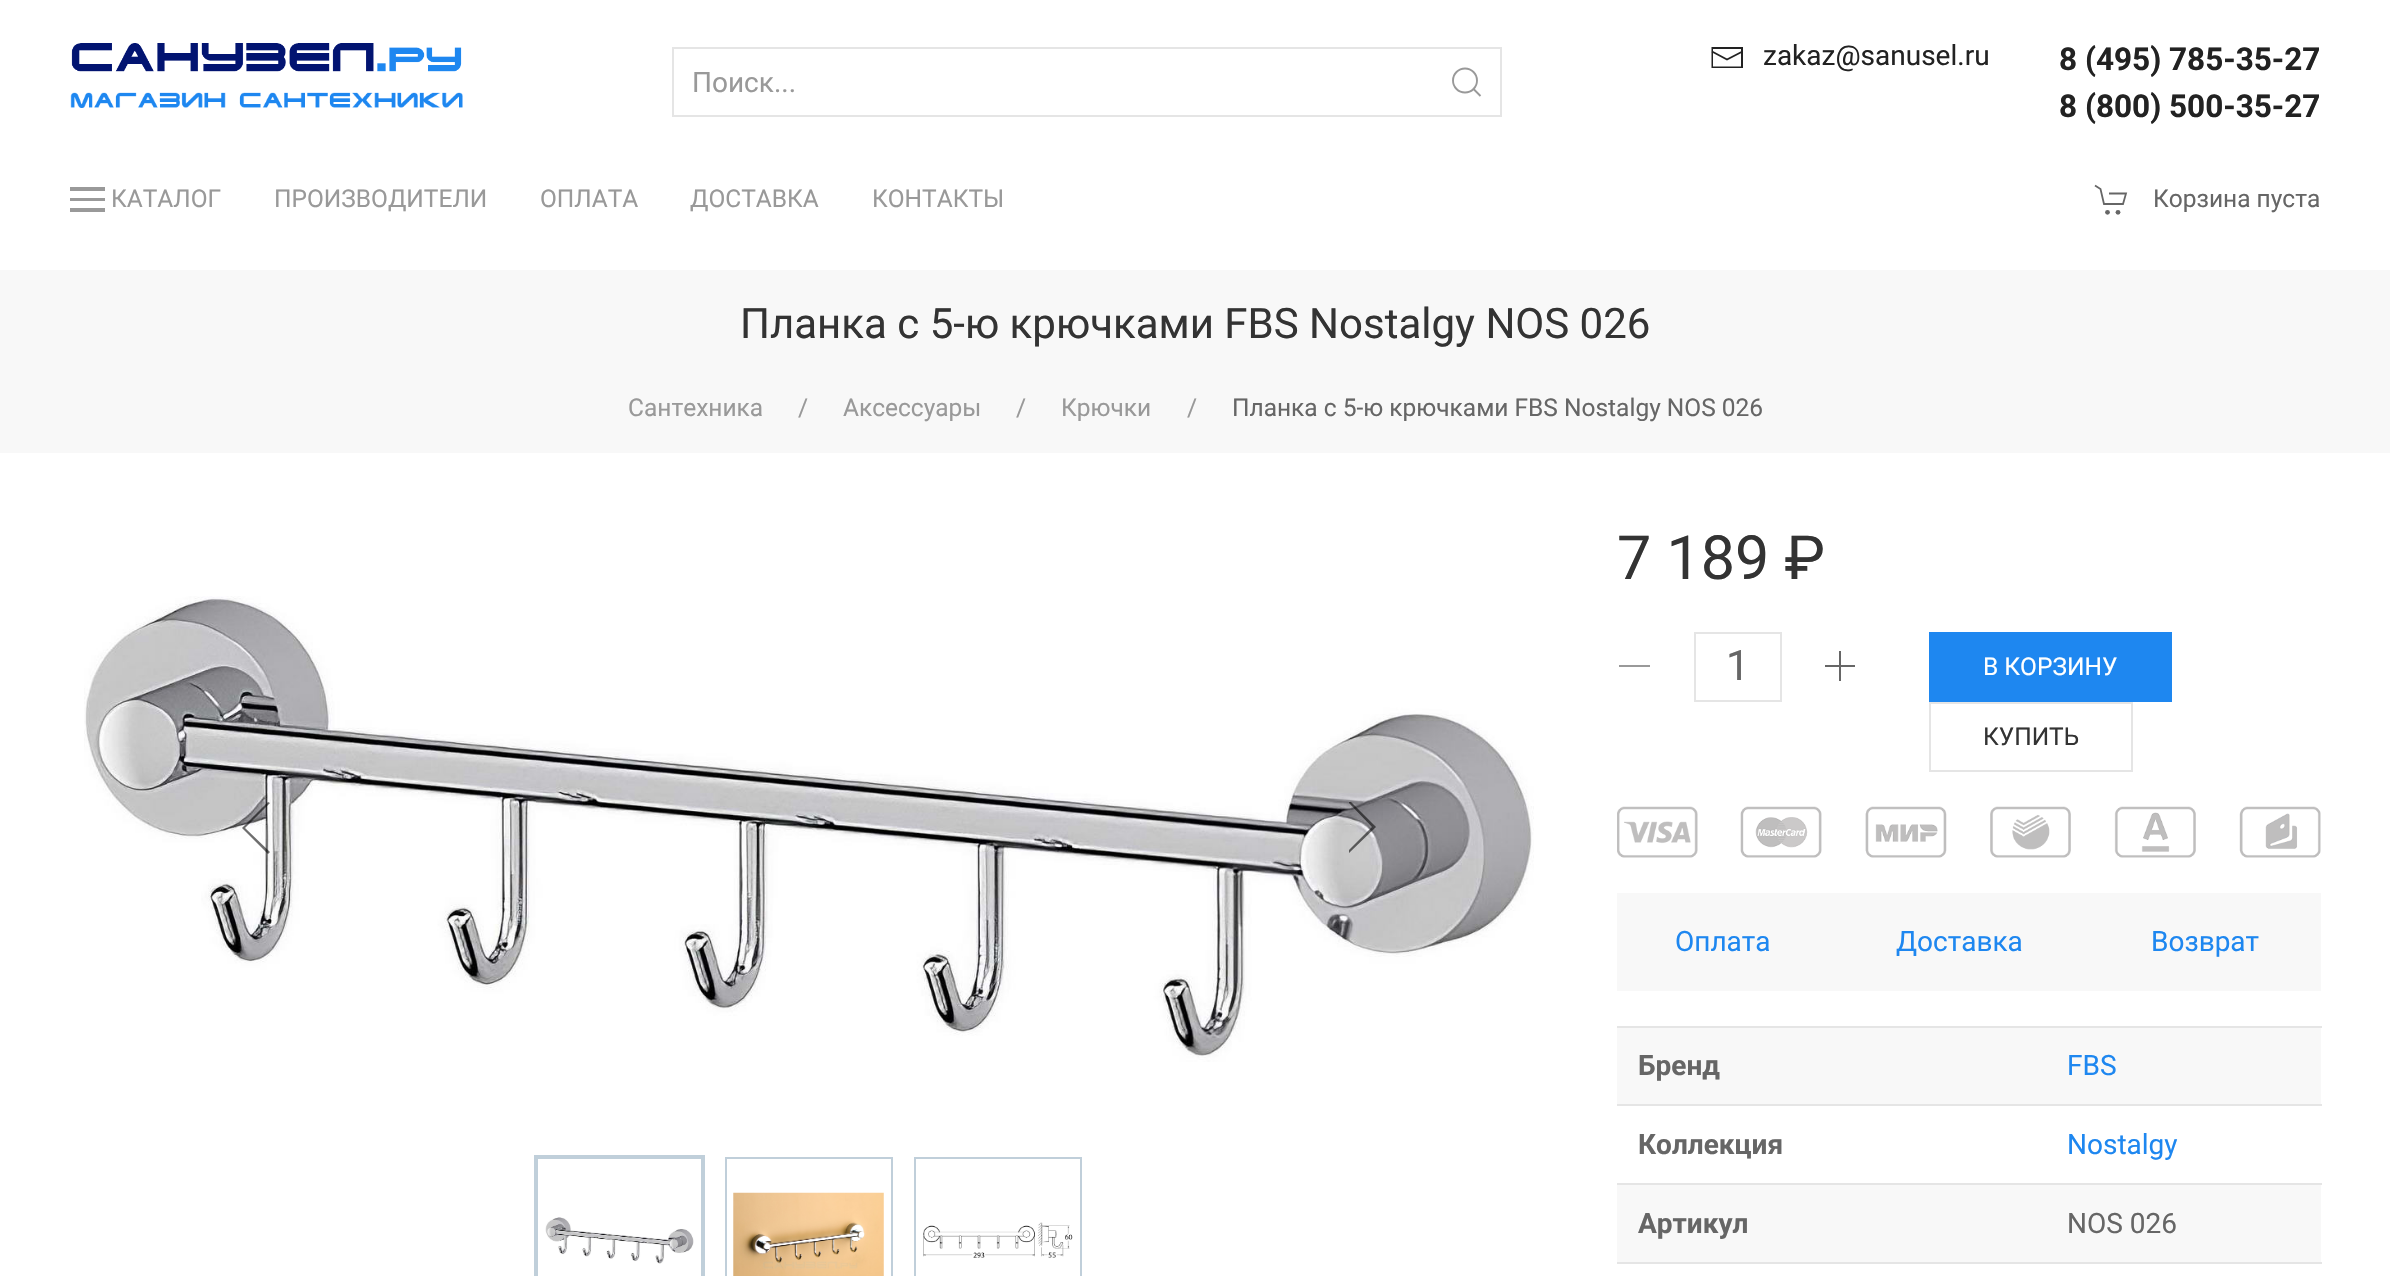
void draw(SkCanvas* c) {
SkPaint p;
p.setAntiAlias(true);
auto F=[&](const char* family, int weight, float size, bool italic = false){SkFontStyle style(weight, SkFontStyle::kNormal_Width,italic ? SkFontStyle::kItalic_Slant : SkFontStyle::kUpright_Slant);SkFont result(fontMgr->matchFamilyStyle(family, style), size);result.setSubpixel(true);return result;};
auto T=[&](const char* s, float x, float y, const SkFont& font){c->drawString(s, x, y, font, p);};
auto R=[&](float x, float y, float w, float h){c->drawRect(SkRect::MakeXYWH(x, y, w, h), p);};
auto I=[&](const char* path, float x, float y, float w, float h){auto image = SkImages::DeferredFromEncodedData(SkData::MakeFromFileName(path));c->drawImageRect(image, SkRect::MakeXYWH(x, y, w, h), SkSamplingOptions());};
auto P=[&](const char* data, bool evenOdd = false){SkPath result = *SkParsePath::FromSVGString(data);if (evenOdd) result.setFillType(SkPathFillType::kEvenOdd);return result;};
c->clear(0xffffffff);
I("1.png",71,43,391,29);
I("2.png",70,92,393,16);
p.setStroke(true);
p.setStrokeWidth(2);
p.setColor(0xffe5e5e5);
c->drawRect(SkRect::MakeXYWH(673,48,828,68),p);
auto f1 = F("Roboto",400,28);
p.setStroke(false);
p.setColor(0xff999999);
T("Поиск...",692,92,f1);
p.setStroke(true);
p.setStrokeWidth(1.9);
c->drawCircle(1465,80.5,12,p);
c->drawPath(P("M1473.5 89l7 7z"),p);
p.setStrokeWidth(1.8);
p.setColor(0xff222222);
c->drawPath(P("M1712 51.5l15 8l15.5-8"),p);
p.setStroke(false);
c->drawPath(P("M1711.5 47v21h31.5v-21zm29.5 19.5h-28v-17.5h28z"),p);
T("zakaz@sanusel.ru",1763,65,f1);
auto f2 = F("Roboto",700,31.5);
T("8 (495) 785-35-27",2059,70,f2);
T("8 (800) 500-35-27",2059,117,f2);
p.setColor(0xff999999);
R(70,187,35,4);
R(70,198,35,3);
R(70,208,35,4);
auto f3 = F("Roboto",400,24.5);
T("КАТАЛОГ",111,207,f3);
T("ПРОИЗВОДИТЕЛИ",274,207,f3);
T("ОПЛАТА",540,207,f3);
T("ДОСТАВКА",690,207,f3);
T("КОНТАКТЫ",872,207,f3);
p.setStroke(true);
p.setColor(0xff666666);
c->drawPath(P("M2095 185.5l5.5 3.5l3.5 15h19l3-10.5h-17"),p);
p.setStroke(false);
c->drawCircle(2107.5,212.3,2.4,p);
c->drawCircle(2118,212.3,2.4,p);
T("Корзина пуста",2153,207,f3);
p.setColor(0xfff8f8f8);
R(0,270,2390,183);
auto f4 = F("Roboto",400,42);
p.setColor(0xff333333);
T("Планка с 5-ю крючками FBS Nostalgy NOS 026",740,338,f4);
p.setColor(0xff999999);
T("Сантехника",628,416,f3);
T("/",798,416,f3);
T("Аксессуары",843,416,f3);
T("/",1016,416,f3);
T("Крючки",1061,416,f3);
T("/",1187,416,f3);
p.setColor(0xff666666);
T("Планка с 5-ю крючками FBS Nostalgy NOS 026",1232,416,f3);
I("3.png",84,596,1450,466);
p.setColor(0x91000000);
c->drawPath(P("M270 852l-25-24l25-25l-2-1l-26 26l26 26z",true),p);
c->save();
c->clipRect(SkRect::MakeXYWH(1349,802,28,52));
c->drawPath(P("M1348 802l24 25l-24 24l1 2l27-26l-27-27z",true),p);
c->restore();
p.setStroke(true);
p.setStrokeWidth(4);
p.setColor(0xffc0cfda);
c->drawRect(SkRect::MakeXYWH(536,1157,167,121),p);
I("4.png",545,1217,149,47);
p.setStrokeWidth(2);
c->drawRect(SkRect::MakeXYWH(726,1158,166,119),p);
I("5.png",733,1192,151,84);
c->drawRect(SkRect::MakeXYWH(915,1158,166,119),p);
I("6.png",923,1222,150,36);
auto f5 = F("Roboto",400,61);
p.setStroke(false);
p.setColor(0xff333333);
T("7 189 ₽",1617,579,f5);
p.setColor(0xff999999);
R(1619,665,31,2);
p.setStroke(true);
p.setColor(0xffe5e5e5);
c->drawRect(SkRect::MakeXYWH(1695,633,86,68),p);
p.setStroke(false);
p.setColor(0xff666666);
T("1",1726,680,f4);
R(1839,651,2,30);
R(1825,665,30,2);
p.setColor(0xff1e87f0);
R(1929,632,243,70);
p.setColor(0xffffffff);
T("В КОРЗИНУ",1983,675,f3);
p.setStroke(true);
p.setColor(0xffe5e5e5);
c->drawRect(SkRect::MakeXYWH(1930,703,202,68),p);
p.setStroke(false);
p.setColor(0xff333333);
T("КУПИТЬ",1983,745,f3);
I("7.png",1617,806,704,52);
p.setColor(0xfff8f8f8);
R(1617,893,704,98);
p.setColor(0xff1e87f0);
T("Оплата",1675,951,f1);
T("Доставка",1896,951,f1);
T("Возврат",2151,951,f1);
p.setColor(0xfff8f8f8);
R(1617,1028,704,76);
p.setColor(0xffe5e5e5);
R(1617,1026,705,2);
R(1617,1104,705,2);
auto f6 = F("Roboto",700,28);
p.setColor(0xff666666);
T("Бренд",1638,1075,f6);
p.setColor(0xff1e87f0);
T("FBS",2067,1075,f1);
p.setColor(0xff666666);
T("Коллекция",1638,1154,f6);
p.setColor(0xff1e87f0);
T("Nostalgy",2067,1154,f1);
p.setColor(0xfff8f8f8);
R(1617,1185,704,77);
p.setColor(0xffe5e5e5);
R(1617,1183,705,2);
R(1617,1262,705,2);
p.setColor(0xff666666);
T("Артикул",1638,1233,f6);
T("NOS 026",2067,1233,f1);
}
